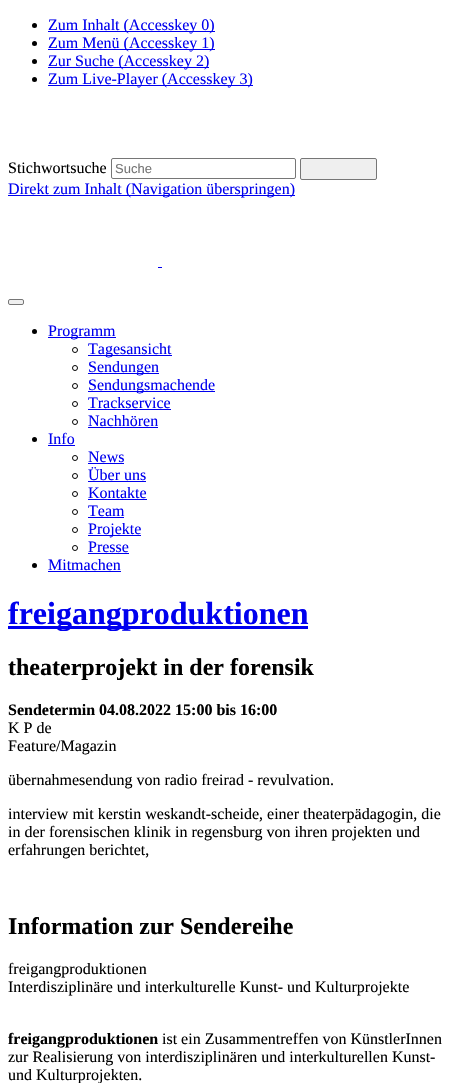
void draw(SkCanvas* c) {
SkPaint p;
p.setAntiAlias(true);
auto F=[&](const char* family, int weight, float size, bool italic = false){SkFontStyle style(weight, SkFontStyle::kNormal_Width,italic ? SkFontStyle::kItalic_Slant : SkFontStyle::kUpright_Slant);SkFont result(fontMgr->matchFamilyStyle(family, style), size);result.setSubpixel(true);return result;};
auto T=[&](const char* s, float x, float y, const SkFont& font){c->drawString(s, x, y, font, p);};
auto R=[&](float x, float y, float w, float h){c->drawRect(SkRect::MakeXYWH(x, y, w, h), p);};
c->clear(0xffffffff);
p.setColor(0xff000000);
c->drawCircle(34.5,25.5,2.5,p);
p.setColor(0xff0000ee);
R(48,31,167,1);
auto f1 = F("Liberation Serif",400,16);
T("Zum Inhalt (Accesskey 0)",48,30,f1);
p.setColor(0xff000000);
c->drawCircle(34.5,43.5,2.5,p);
p.setColor(0xff0000ee);
R(48,49,167,1);
T("Zum Menü (Accesskey 1)",48,48,f1);
p.setColor(0xff000000);
c->drawCircle(34.5,61.5,2.5,p);
p.setColor(0xff0000ee);
R(48,67,161,1);
T("Zur Suche (Accesskey 2)",48,66,f1);
p.setColor(0xff000000);
c->drawCircle(34.5,79.5,2.5,p);
p.setColor(0xff0000ee);
R(48,85,205,1);
T("Zum Live-Player (Accesskey 3)",48,84,f1);
p.setColor(0xff000000);
T("Stichwortsuche",8,173,f1);
p.setStroke(true);
p.setStrokeWidth(1);
p.setColor(0xff767676);
c->drawRoundRect(SkRect::MakeXYWH(111.5,158.5,184,20),1.5,1.5,p);
auto f2 = F("Liberation Sans",400,13);
p.setStroke(false);
p.setColor(0xff757575);
T("Suche",115,173,f2);
p.setColor(0xffefefef);
c->drawRoundRect(SkRect::MakeXYWH(300.5,158.5,76,21),1.5,1.5,p);
p.setStroke(true);
p.setColor(0xff767676);
c->drawRoundRect(SkRect::MakeXYWH(300.5,158.5,76,21),1.5,1.5,p);
p.setStroke(false);
p.setColor(0xff0000ee);
R(8,195,287,1);
T("Direkt zum Inhalt (Navigation überspringen)",8,194,f1);
R(158,267,4,1);
p.setColor(0xffefefef);
c->drawRoundRect(SkRect::MakeXYWH(8.5,299.5,15,5),1.5,1.5,p);
p.setStroke(true);
p.setColor(0xff767676);
c->drawRoundRect(SkRect::MakeXYWH(8.5,299.5,15,5),1.5,1.5,p);
p.setStroke(false);
p.setColor(0xff000000);
c->drawCircle(34.5,331.5,2.5,p);
p.setColor(0xff0000ee);
R(48,337,68,1);
T("Programm",48,336,f1);
p.setStroke(true);
p.setColor(0xff000000);
c->drawCircle(75,350,2.5,p);
p.setStroke(false);
p.setColor(0xff0000ee);
R(88,355,84,1);
T("Tagesansicht",88,354,f1);
p.setStroke(true);
p.setColor(0xff000000);
c->drawCircle(75,368,2.5,p);
p.setStroke(false);
p.setColor(0xff0000ee);
R(88,373,71,1);
T("Sendungen",88,372,f1);
p.setStroke(true);
p.setColor(0xff000000);
c->drawCircle(75,386,2.5,p);
p.setStroke(false);
p.setColor(0xff0000ee);
R(88,391,127,1);
T("Sendungsmachende",88,390,f1);
p.setStroke(true);
p.setColor(0xff000000);
c->drawCircle(75,404,2.5,p);
p.setStroke(false);
p.setColor(0xff0000ee);
T("Trackservice",88,408,f1);
R(88,409,83,1);
p.setStroke(true);
p.setColor(0xff000000);
c->drawCircle(75,422,2.5,p);
p.setStroke(false);
p.setColor(0xff0000ee);
T("Nachhören",88,426,f1);
R(88,427,70,1);
p.setColor(0xff000000);
c->drawCircle(34.5,439.5,2.5,p);
p.setColor(0xff0000ee);
T("Info",48,444,f1);
R(48,445,27,1);
p.setStroke(true);
p.setColor(0xff000000);
c->drawCircle(75,458,2.5,p);
p.setStroke(false);
p.setColor(0xff0000ee);
T("News",88,462,f1);
R(88,463,36,1);
p.setStroke(true);
p.setColor(0xff000000);
c->drawCircle(75,476,2.5,p);
p.setStroke(false);
p.setColor(0xff0000ee);
T("Über uns",88,480,f1);
R(88,481,58,1);
p.setStroke(true);
p.setColor(0xff000000);
c->drawCircle(75,494,2.5,p);
p.setStroke(false);
p.setColor(0xff0000ee);
T("Kontakte",88,498,f1);
R(88,499,59,1);
p.setStroke(true);
p.setColor(0xff000000);
c->drawCircle(75,512,2.5,p);
p.setStroke(false);
p.setColor(0xff0000ee);
T("Team",88,516,f1);
R(88,517,36,1);
p.setStroke(true);
p.setColor(0xff000000);
c->drawCircle(75,530,2.5,p);
p.setStroke(false);
p.setColor(0xff0000ee);
R(88,535,53,1);
T("Projekte",88,534,f1);
p.setStroke(true);
p.setColor(0xff000000);
c->drawCircle(75,548,2.5,p);
p.setStroke(false);
p.setColor(0xff0000ee);
T("Presse",88,552,f1);
R(88,553,41,1);
p.setColor(0xff000000);
c->drawCircle(34.5,565.5,2.5,p);
p.setColor(0xff0000ee);
T("Mitmachen",48,570,f1);
R(48,571,73,1);
R(8,626,300,3);
auto f3 = F("Liberation Serif",700,32);
T("freigangproduktionen",8,624,f3);
auto f4 = F("Liberation Serif",700,24);
p.setColor(0xff000000);
T("theaterprojekt in der forensik",8,675,f4);
auto f5 = F("Liberation Serif",700,16);
T("Sendetermin 04.08.2022 15:00 bis 16:00",8,715,f5);
T("K P de",8,733,f1);
T("Feature/Magazin",8,751,f1);
T("übernahmesendung von radio freirad - revulvation.",8,785,f1);
T("interview mit kerstin weskandt-scheide, einer theaterpädagogin, die",8,819,f1);
T("in der forensischen klinik in regensburg von ihren projekten und",8,837,f1);
T("erfahrungen berichtet,",8,855,f1);
T("Information zur Sendereihe",8,934,f4);
T("freigangproduktionen",8,974,f1);
T("Interdisziplinäre und interkulturelle Kunst- und Kulturprojekte",8,992,f1);
T("freigangproduktionen",8,1044,f5);
T("ist ein Zusammentreffen von KünstlerInnen",162,1044,f1);
T("zur Realisierung von interdisziplinären und interkulturellen Kunst-",8,1062,f1);
T("und Kulturprojekten.",8,1080,f1);
}
